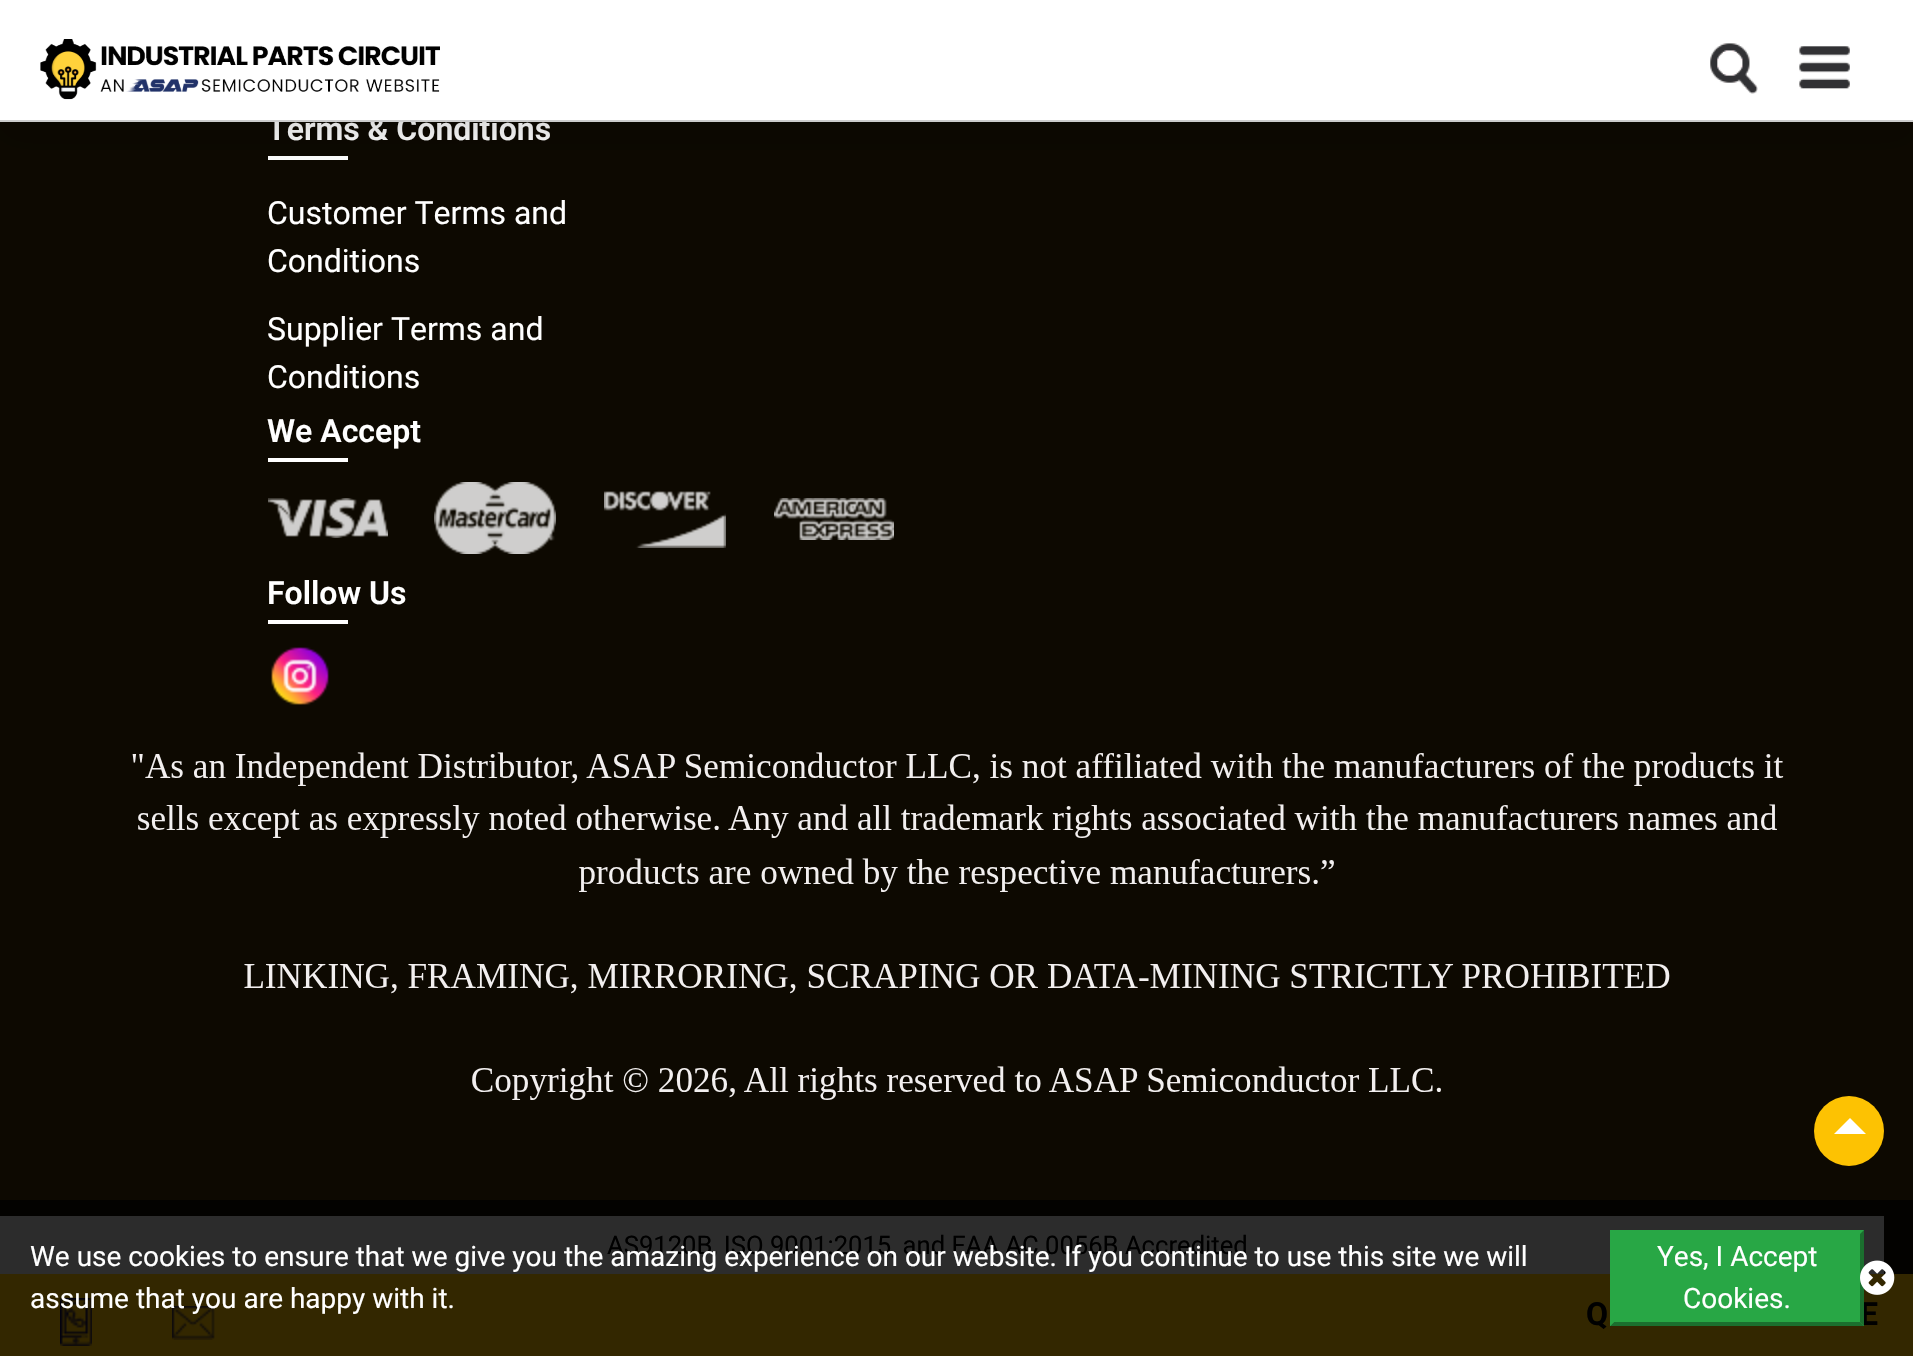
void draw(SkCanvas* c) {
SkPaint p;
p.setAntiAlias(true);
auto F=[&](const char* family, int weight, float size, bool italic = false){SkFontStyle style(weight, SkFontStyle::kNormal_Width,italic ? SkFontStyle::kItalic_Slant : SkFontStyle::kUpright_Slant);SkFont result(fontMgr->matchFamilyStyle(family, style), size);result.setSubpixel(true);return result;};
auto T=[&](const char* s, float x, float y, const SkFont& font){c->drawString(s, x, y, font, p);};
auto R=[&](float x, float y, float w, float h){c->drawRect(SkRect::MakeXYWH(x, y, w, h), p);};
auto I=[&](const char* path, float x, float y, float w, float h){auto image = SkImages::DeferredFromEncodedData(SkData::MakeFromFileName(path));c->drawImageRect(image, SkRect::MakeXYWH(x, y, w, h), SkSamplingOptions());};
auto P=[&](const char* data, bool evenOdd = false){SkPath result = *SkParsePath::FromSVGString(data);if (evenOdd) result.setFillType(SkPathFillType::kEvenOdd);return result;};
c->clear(0xff0d0901);
p.setColor(0xff030200);
R(0,1200,1913,74);
auto f1 = F("Roboto",600,32);
p.setColor(0xffffffff);
T("Terms & Conditions",267,140,f1);
R(268,156,80,4);
auto f2 = F("Roboto",400,32);
T("Customer Terms and",267,224,f2);
T("Conditions",267,272,f2);
T("Supplier Terms and",267,340,f2);
T("Conditions",267,388,f2);
T("We Accept",267,442,f1);
R(268,458,80,4);
I("1.png",268,498,120,40);
I("2.png",434,482,122,72);
I("3.png",604,490,122,58);
I("4.png",774,498,120,42);
T("Follow Us",267,604,f1);
R(268,620,80,4);
I("5.png",271,647,58,58);
I("6.png",132,752,1652,348);
p.setColor(0x26000000);
p.setMaskFilter(SkMaskFilter::MakeBlur(kNormal_SkBlurStyle, 16));
c->drawRect(SkRect::MakeXYWH(0,16,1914,122),p);
p.setMaskFilter(nullptr);
p.setColor(0xffffffff);
R(0,0,1913,120);
p.setColor(0xffcccccc);
R(0,120,1913,2);
I("7.png",40,39,400,61);
I("8.png",1710,43,48,51);
I("9.png",1799,46,51,43);
p.setColor(0xff2c2c2c);
R(0,1216,1884,58);
auto f3 = F("Roboto",400,25.6);
p.setColor(0xff000000);
T("AS9120B, ISO 9001:2015, and FAA AC 0056B Accredited",607,1254,f3);
p.setColor(0xff332700);
R(0,1274,1913,82);
I("10.png",60,1298,32,48);
I("11.png",172,1306,43,34);
auto f4 = F("Roboto",700,32);
p.setColor(0xff000000);
T("Q",1586,1325,f4);
T("E",1860,1325,f4);
auto f5 = F("Roboto",400,28);
p.setColor(0xffffffff);
T("We use cookies to ensure that we give you the amazing experience on our website. If you continue to use this site we will",30,1266,f5);
T("assume that you are happy with it.",30,1308,f5);
p.setColor(0xff28a745);
R(1610,1230,254,96);
p.setColor(0xff1b6f2e);
c->drawPath(P("M1864 1230v96l-4-4v-88z"),p);
c->drawPath(P("M1864 1326h-254l4-4h246z"),p);
p.setColor(0xff28a745);
c->drawPath(P("M1610 1326v-96l4 4v88z"),p);
p.setColor(0xffffffff);
T("Yes, I Accept",1657,1266,f5);
T("Cookies.",1683,1308,f5);
I("12.png",1860,1260,35,35);
p.setColor(0xfffdc202);
c->drawCircle(1849,1131,35,p);
p.setColor(0xffffffff);
c->drawPath(P("M1866 1134h-32l16-16z"),p);
}
